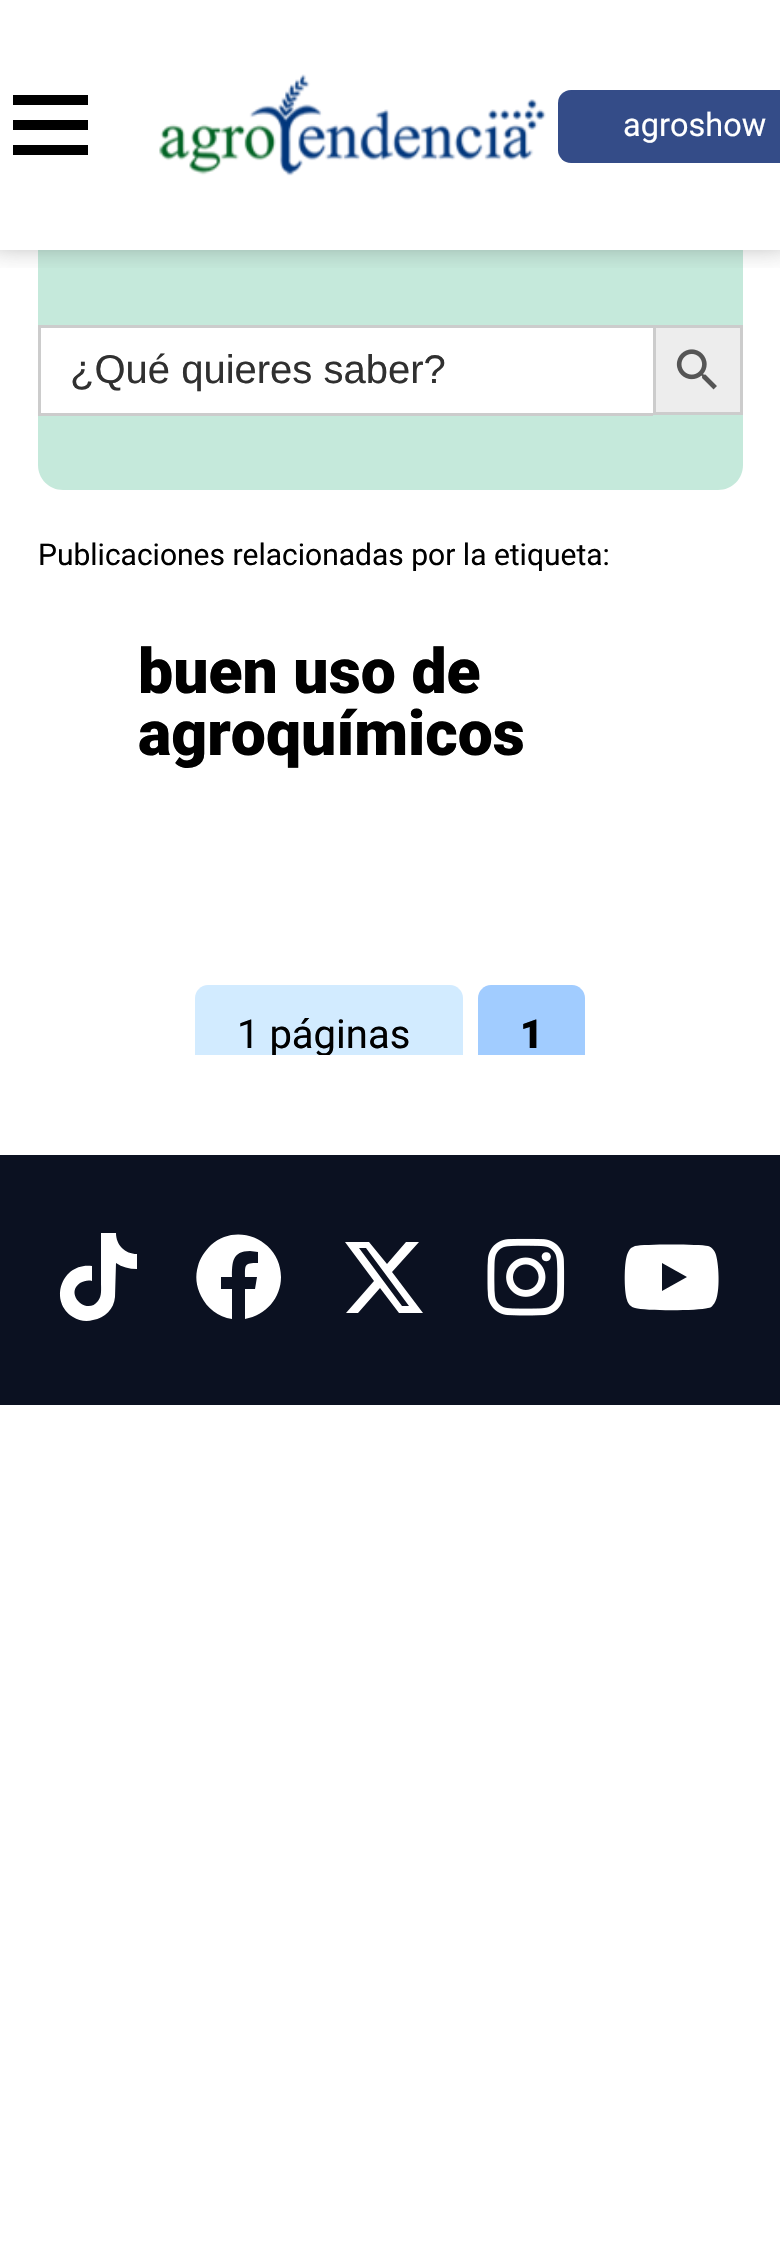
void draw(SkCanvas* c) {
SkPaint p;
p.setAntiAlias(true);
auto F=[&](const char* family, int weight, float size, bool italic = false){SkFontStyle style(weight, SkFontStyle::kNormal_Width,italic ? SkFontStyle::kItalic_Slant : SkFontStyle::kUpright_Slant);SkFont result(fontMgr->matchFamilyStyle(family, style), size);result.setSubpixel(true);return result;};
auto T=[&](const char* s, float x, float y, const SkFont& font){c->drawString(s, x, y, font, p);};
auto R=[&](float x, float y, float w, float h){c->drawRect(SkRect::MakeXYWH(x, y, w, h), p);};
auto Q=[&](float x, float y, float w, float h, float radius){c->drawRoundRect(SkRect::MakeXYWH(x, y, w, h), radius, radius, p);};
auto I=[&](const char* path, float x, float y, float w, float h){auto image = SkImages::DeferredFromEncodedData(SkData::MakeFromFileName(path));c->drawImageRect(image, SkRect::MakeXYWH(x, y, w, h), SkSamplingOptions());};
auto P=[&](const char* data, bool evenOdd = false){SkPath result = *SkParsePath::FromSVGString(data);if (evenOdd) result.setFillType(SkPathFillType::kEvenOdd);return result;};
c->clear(0xffffffff);
p.setColor(0xffc5e9db);
c->drawPath(P("M38 250h705v215c0 14-11 25-25 25h-655c-14 0-25-11-25-25z"),p);
c->save();
c->clipRect(SkRect::MakeXYWH(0,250,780,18));
p.setColor(0x823f3f3f);
p.setMaskFilter(SkMaskFilter::MakeBlur(kNormal_SkBlurStyle, 14));
c->drawRect(SkRect::MakeXYWH(-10,-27,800,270),p);
p.setMaskFilter(nullptr);
c->restore();
p.setColor(0xff000000);
R(13,95,75,10);
R(13,120,75,10);
R(13,145,75,10);
I("1.png",159,74,387,102);
p.setColor(0xff344c88);
Q(558,90,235,73,13);
auto f1 = F("Roboto",400,32.5);
p.setColor(0xffffffff);
T("agroshow",623,136,f1);
R(41,328,612,85);
p.setColor(0xffcccccc);
R(38,325,615,3);
R(38,413,615,3);
R(38,325,3,90);
auto f2 = F("Liberation Sans",400,40);
p.setColor(0xff303030);
T("¿Qué quieres saber?",70,383,f2);
p.setColor(0xffededed);
c->drawRect(SkRect::MakeXYWH(654.5,326.5,87,87),p);
p.setStroke(true);
p.setStrokeWidth(3);
p.setColor(0xffcccccc);
c->drawRect(SkRect::MakeXYWH(654.5,326.5,87,87),p);
I("2.png",676,349,41,41);
auto f3 = F("Roboto",400,30);
p.setStroke(false);
p.setColor(0xff000000);
T("Publicaciones relacionadas por la etiqueta:",38,565,f3);
auto f4 = F("Roboto",900,62.5);
T("buen uso de",138,693,f4);
T("agroquímicos",138,755,f4);
p.setColor(0xffd2ebff);
c->drawPath(P("M208 985h242c7 0 13 6 13 13v57h-268v-57c0-7 6-13 13-13z"),p);
c->save();
c->clipRect(SkRect::MakeXYWH(0,0,780,1055));
auto f5 = F("Roboto",400,40);
p.setColor(0xff000000);
T("1 páginas",237,1048,f5);
c->restore();
p.setColor(0xffa1ccff);
c->drawPath(P("M491 985h81c7 0 13 6 13 13v57h-107v-57c0-7 6-13 13-13z"),p);
auto f6 = F("Roboto",900,40);
p.setColor(0xff000000);
T("1",520,1048,f6);
p.setColor(0xff0b1121);
R(0,1155,780,250);
p.setColor(0xffffffff);
c->drawPath(P("M137 1269c-8 0-15-2-21-6l-1 34c-1 12-10 21-22 23c-6 2-14 1-20-3c-25-16-11-55 19-51v15c-4-1-8 0-12 2c-16 11 7 33 18 18c4-5 3-12 3-18v-50h15c0 12 9 21 21 21z"),p);
c->drawPath(P("M281 1277c0-36-43-56-70-32c-6 6-11 13-13 21c-3 10-2 20 3 30c6 12 17 21 31 23v-30h-11v-12h11c0-14 0-26 18-26l8 1v11c-14 0-13 2-13 14h12l-2 12h-10v30c21-4 36-21 36-42z"),p);
c->drawPath(P("M406 1242h13l-27 30l31 41h-24l-19-25l-22 25h-12l28-32l-29-39h24l18 22zm-4 64h7l-43-58h-7z"),p);
I("3.png",487,1238,78,78);
c->drawPath(P("M716 1255c-1-4-4-8-8-9c-9-2-64-2-73 0l-4 2c-2 2-3 4-4 7c-3 9-3 36 0 45c1 4 4 7 8 8c10 3 63 3 73 0c2 0 4-1 5-3c8-7 6-40 3-50zm-54 36v-28l25 14z"),p);
}
